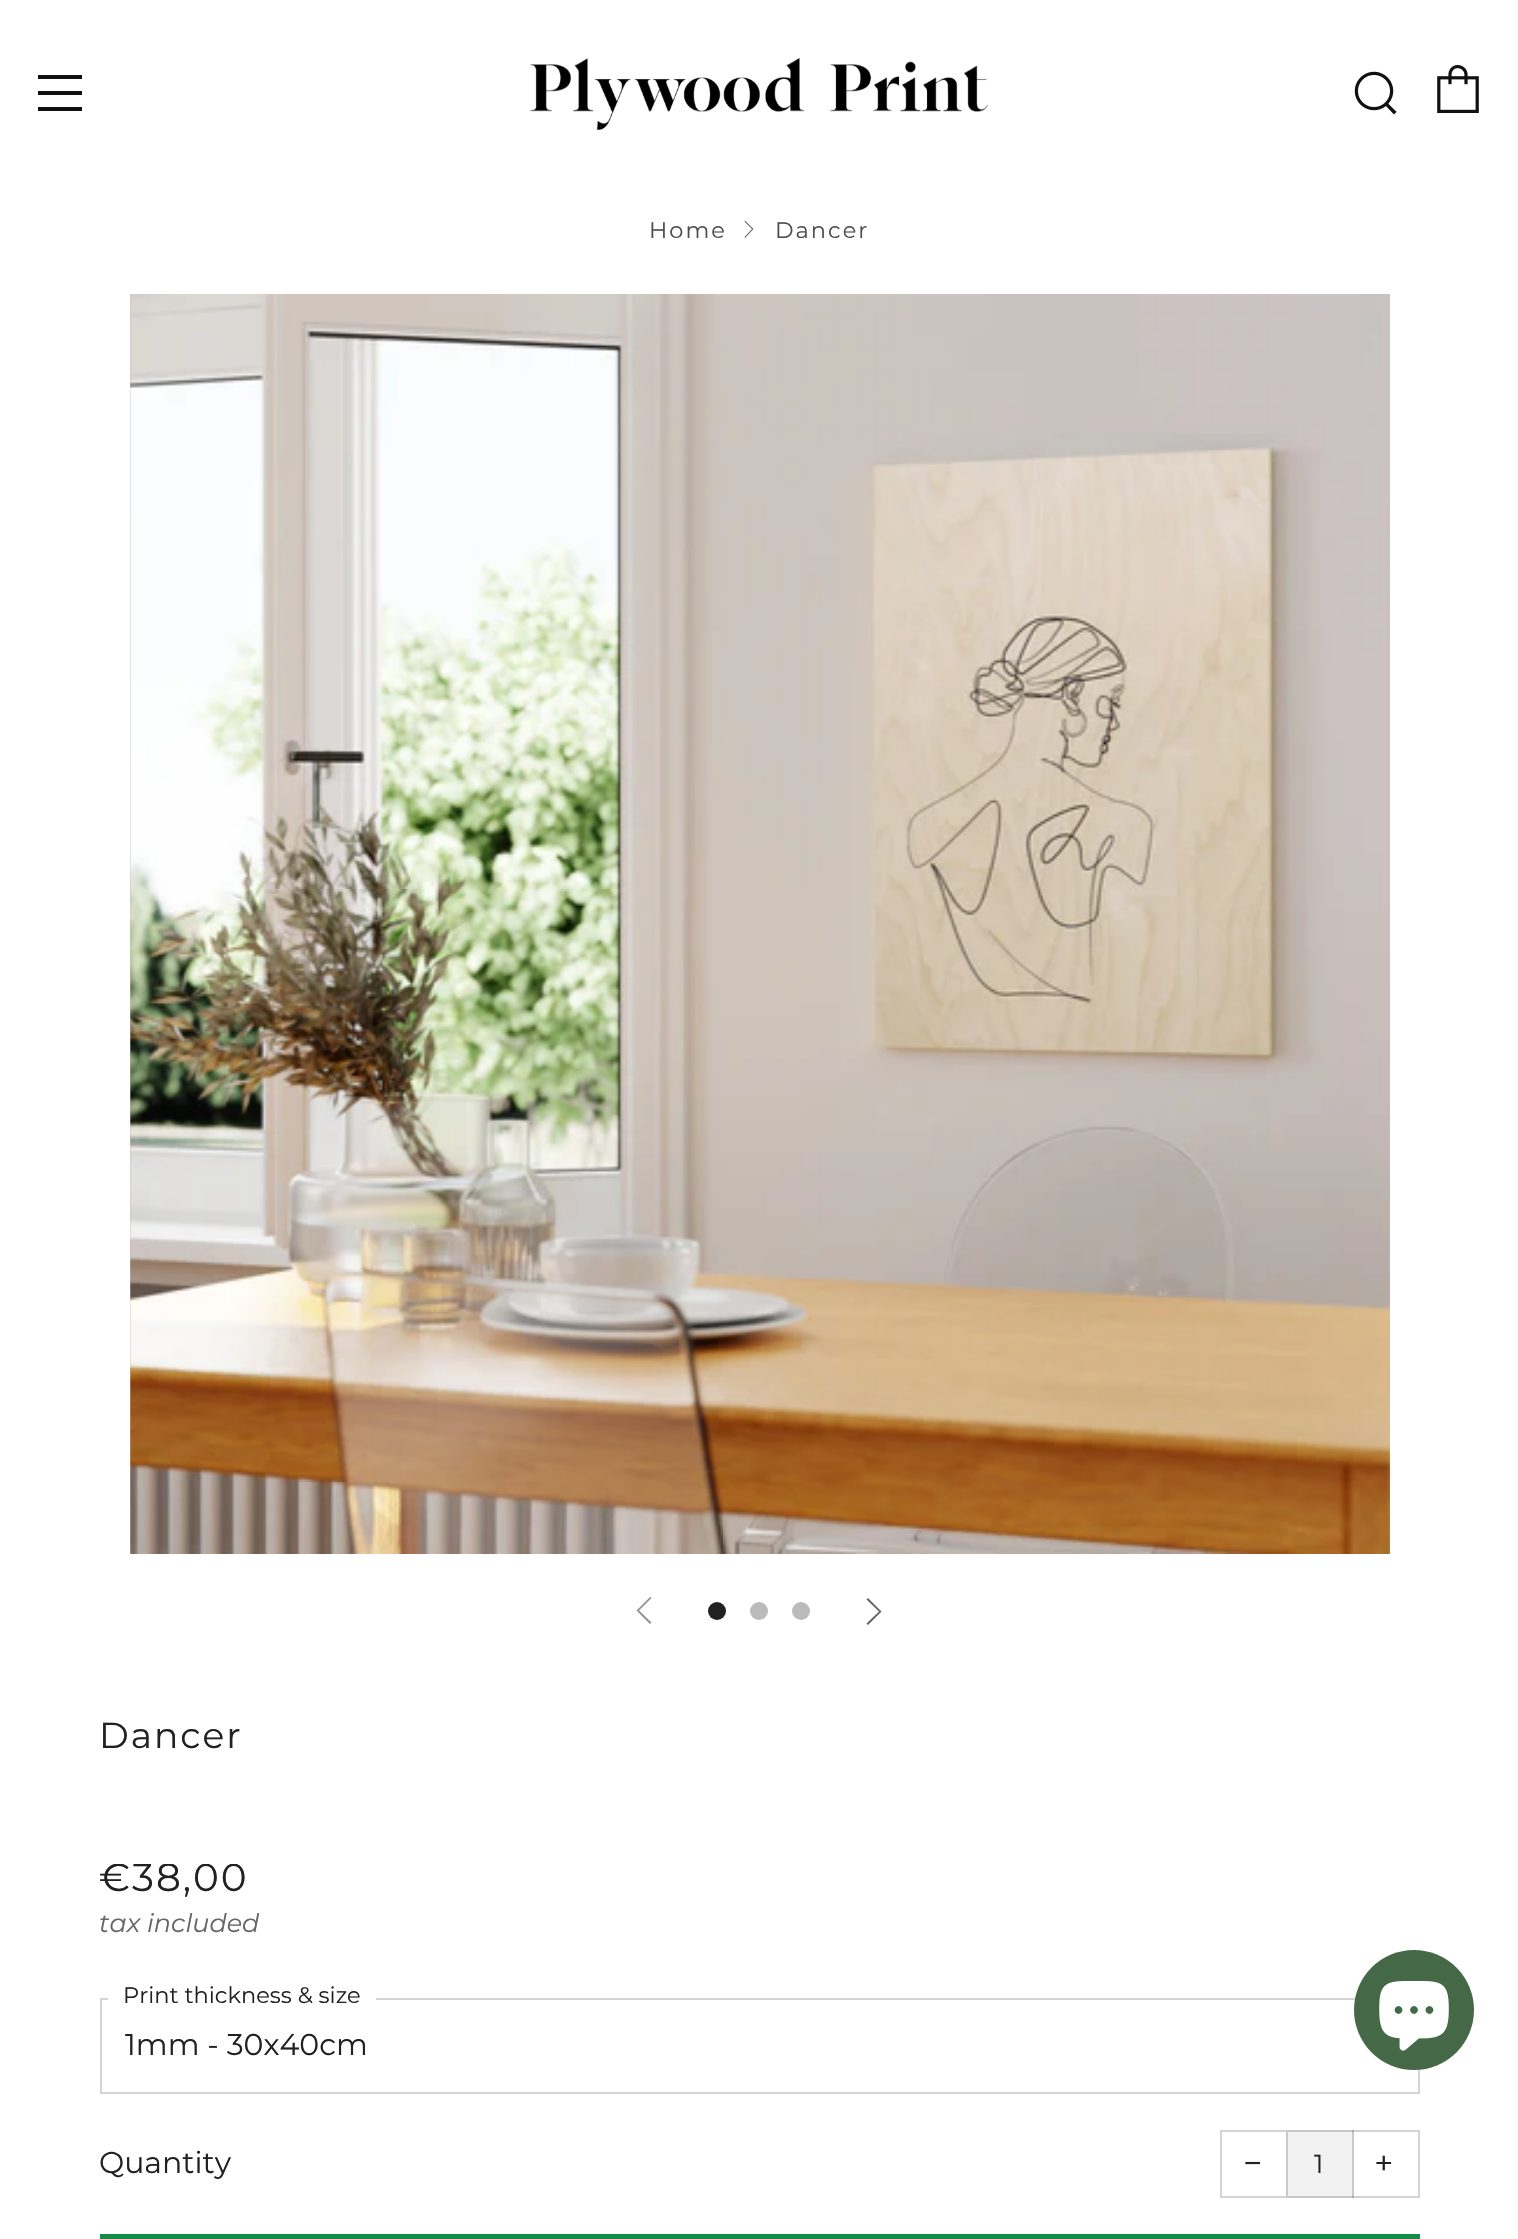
void draw(SkCanvas* c) {
SkPaint p;
p.setAntiAlias(true);
auto F=[&](const char* family, int weight, float size, bool italic = false){SkFontStyle style(weight, SkFontStyle::kNormal_Width,italic ? SkFontStyle::kItalic_Slant : SkFontStyle::kUpright_Slant);SkFont result(fontMgr->matchFamilyStyle(family, style), size);result.setSubpixel(true);return result;};
auto T=[&](const char* s, float x, float y, const SkFont& font){c->drawString(s, x, y, font, p);};
auto L=[&](const char* s, float x, float y, const SkFont& font, const SkPaint& ink, float letter, float word){std::vector<SkGlyphID> glyphs(font.countText(s, strlen(s), SkTextEncoding::kUTF8));std::vector<float> xs(glyphs.size());font.textToGlyphs(s, strlen(s), SkTextEncoding::kUTF8, glyphs);font.getXPos(glyphs, xs, x);float extra = 0;for (size_t i = 0; i < glyphs.size(); i++) {xs[i] += extra;extra += letter + word * (glyphs[i] == font.unicharToGlyph(' '));}c->drawTextBlob(SkTextBlob::MakeFromPosHGlyphs(glyphs, xs, y, font), 0, 0, ink);};
auto R=[&](float x, float y, float w, float h){c->drawRect(SkRect::MakeXYWH(x, y, w, h), p);};
auto I=[&](const char* path, float x, float y, float w, float h){auto image = SkImages::DeferredFromEncodedData(SkData::MakeFromFileName(path));c->drawImageRect(image, SkRect::MakeXYWH(x, y, w, h), SkSamplingOptions());};
auto P=[&](const char* data, bool evenOdd = false){SkPath result = *SkParsePath::FromSVGString(data);if (evenOdd) result.setFillType(SkPathFillType::kEvenOdd);return result;};
c->clear(0xffffffff);
p.setColor(0xff111111);
c->drawPath(P("M38 79h44v-4h-44zm0 32h44v-4h-44zm0-16h44v-4h-44z"),p);
I("1.png",530,58,458,73);
I("2.png",1354,71,43,44);
I("3.png",1437,65,42,48);
auto f1 = F("Montserrat",400,22.5);
p.setColor(0xff4d4d4d);
L("Home",649,238,f1,p,2,0);
p.setColor(0xff646464);
c->drawPath(P("M744.5 237l.5 1l8.5-9l-8.5-8.5l-.5 1l7.5 7.5z"),p);
p.setColor(0xff4d4d4d);
L("Dancer",775,238,f1,p,2,0);
p.setColor(0xffc8baaa);
R(130,294,1260,1260);
I("4.png",130,294,1260,1260);
p.setColor(0xff909090);
c->drawPath(P("M651.5 1622.5l-1.5 1.5l-13.5-13.5l13.5-13.5l1.5 1l-12.5 12.5z"),p);
p.setColor(0xff212121);
c->drawCircle(717,1611,9,p);
p.setColor(0xffbbbbbb);
c->drawCircle(759,1611,9,p);
c->drawCircle(801,1611,9,p);
p.setColor(0xff646464);
c->drawPath(P("M866.5 1623.5l1.5 1.5l13.5-13.5l-13.5-13.5l-1.5 1.5l12.5 12z"),p);
auto f2 = F("Montserrat",400,36);
p.setColor(0xff212121);
L("Dancer",99,1748,f2,p,2,0);
c->save();
c->clipRect(SkRect::MakeXYWH(100,1864,1320,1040));
auto f3 = F("Montserrat",400,39);
L("€38,00",99,1891,f3,p,2,0);
c->restore();
auto f4 = F("Montserrat",400,25.5,true);
p.setColor(0xff666666);
T("tax included",99,1932,f4);
p.setStroke(true);
p.setStrokeWidth(2);
p.setColor(0xffd3d3d3);
c->drawRect(SkRect::MakeXYWH(101,1999,1318,94),p);
p.setStroke(false);
p.setColor(0xffffffff);
R(108,1998,268,2);
p.setColor(0xff212121);
T("Print thickness & size",123,2003,f1);
auto f5 = F("Montserrat",400,30);
T("1mm - 30x40cm",125,2055,f5);
T("Quantity",99,2173,f5);
p.setStroke(true);
p.setColor(0xffd3d3d3);
c->drawRect(SkRect::MakeXYWH(1221,2131,66,66),p);
auto f6 = F("Liberation Sans",400,30);
p.setStroke(false);
p.setColor(0xff212121);
T("−",1244,2173,f6);
p.setColor(0xfff2f2f2);
c->drawRect(SkRect::MakeXYWH(1287,2131,66,66),p);
p.setStroke(true);
p.setColor(0xffc8c8c8);
c->drawRect(SkRect::MakeXYWH(1287,2131,66,66),p);
auto f7 = F("Montserrat",400,26);
p.setStroke(false);
p.setColor(0xff212121);
T("1",1314,2173,f7);
p.setColor(0x33212121);
c->drawPath(P("M1352 2130h68l-2 2h-66z"),p);
c->drawPath(P("M1420 2130v68l-2-2v-64z"),p);
c->drawPath(P("M1420 2198h-68v-2h66z"),p);
p.setColor(0xff212121);
T("+",1375,2173,f6);
p.setColor(0xff128c41);
R(100,2234,1320,5);
p.setColor(0xff456846);
c->drawCircle(1414,2010,60,p);
I("5.png",1379,1981,70,70);
}
